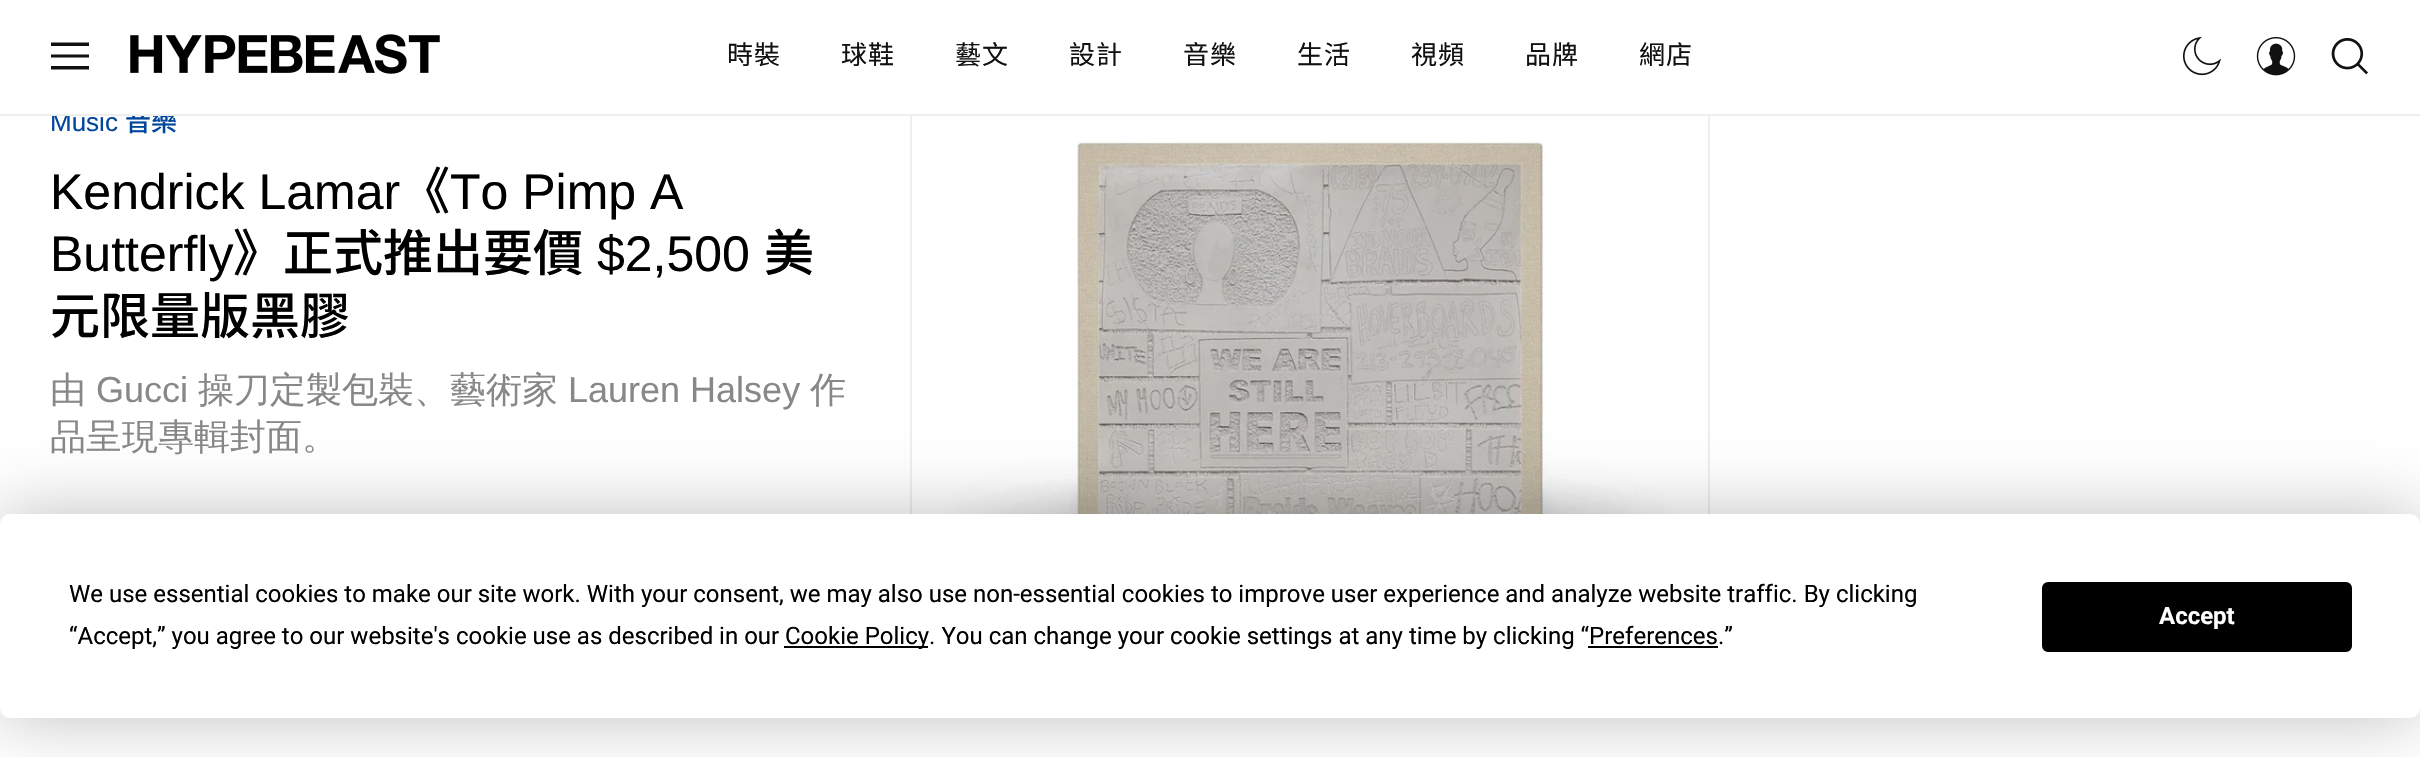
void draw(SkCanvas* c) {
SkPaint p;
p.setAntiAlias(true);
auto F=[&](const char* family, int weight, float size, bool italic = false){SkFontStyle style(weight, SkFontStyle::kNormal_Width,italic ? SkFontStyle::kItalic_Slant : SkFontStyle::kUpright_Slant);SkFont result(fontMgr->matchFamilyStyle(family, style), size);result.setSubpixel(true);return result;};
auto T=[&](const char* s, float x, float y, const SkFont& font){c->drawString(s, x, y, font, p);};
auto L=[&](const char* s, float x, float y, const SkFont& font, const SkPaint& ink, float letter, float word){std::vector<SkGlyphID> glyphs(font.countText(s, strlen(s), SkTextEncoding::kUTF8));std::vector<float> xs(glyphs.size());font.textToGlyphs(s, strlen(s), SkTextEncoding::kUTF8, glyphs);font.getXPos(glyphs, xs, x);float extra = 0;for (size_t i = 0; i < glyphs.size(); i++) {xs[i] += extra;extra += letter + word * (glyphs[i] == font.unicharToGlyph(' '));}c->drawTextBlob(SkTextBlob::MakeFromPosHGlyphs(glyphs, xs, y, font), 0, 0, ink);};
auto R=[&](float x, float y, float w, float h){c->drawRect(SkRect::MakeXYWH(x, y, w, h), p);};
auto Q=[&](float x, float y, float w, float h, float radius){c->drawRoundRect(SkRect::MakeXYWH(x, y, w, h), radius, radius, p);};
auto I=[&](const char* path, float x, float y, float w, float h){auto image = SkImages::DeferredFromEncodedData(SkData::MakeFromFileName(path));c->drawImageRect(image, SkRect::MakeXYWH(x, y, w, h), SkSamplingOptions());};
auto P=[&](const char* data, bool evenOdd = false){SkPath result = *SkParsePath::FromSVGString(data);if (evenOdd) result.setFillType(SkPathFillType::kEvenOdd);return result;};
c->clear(0xffffffff);
auto f1 = F("Liberation Sans",400,26);
p.setColor(0xff00469b);
T("Music",50,131,f1);
auto f2 = F("Noto Sans TC",500,26);
T("音樂",125,131,f2);
p.setStroke(true);
p.setStrokeWidth(2);
p.setColor(0xffeeeeee);
c->drawRect(SkRect::MakeXYWH(911,109,798,532),p);
p.setStroke(false);
p.setColor(0xffffffff);
R(52,108,1658,6);
p.setColor(0xffeeeeee);
R(0,114,2420,2);
p.setColor(0xff111111);
c->drawPath(P("M51 42.5h38v3.5h-38zm0 12h38v3h-38zm0 11.5h38v3.5h-38z"),p);
I("1.png",2183,36,38,40);
I("2.png",2256,37,40,39);
I("3.png",2331,38,37,37);
I("4.png",130,34,310,40);
auto f3 = F("Noto Sans TC",400,26);
L("時裝",727,64,f3,p,1,0);
L("球鞋",841,64,f3,p,1,0);
L("藝文",955,64,f3,p,1,0);
L("設計",1069,64,f3,p,1,0);
L("音樂",1183,64,f3,p,1,0);
L("生活",1297,64,f3,p,1,0);
L("視頻",1411,64,f3,p,1,0);
L("品牌",1525,64,f3,p,1,0);
L("網店",1639,64,f3,p,1,0);
auto f4 = F("Liberation Sans",400,50);
p.setColor(0xff000000);
T("Kendrick Lamar",50,209,f4);
auto f5 = F("Noto Sans TC",500,50);
T("《",400,209,f5);
T("To Pimp A",450,209,f4);
T("Butterfly",50,271,f4);
T("》正式推出要價",233,271,f5);
T("$2,500",597,271,f4);
T("美",764,271,f5);
T("元限量版黑膠",50,334,f5);
auto f6 = F("WenQuanYi Zen Hei",500,36);
p.setColor(0xff888888);
T("由",50,402,f6);
auto f7 = F("Liberation Sans",400,36);
T("Gucci",96,402,f7);
T("操刀定製包裝、藝術家",198,402,f6);
T("Lauren Halsey",568,402,f7);
T("作",810,402,f6);
T("品呈現專輯封面。",50,449,f6);
I("5.png",945,142,730,372);
p.setColor(0x40000000);
p.setMaskFilter(SkMaskFilter::MakeBlur(kNormal_SkBlurStyle, 35));
c->drawRoundRect(SkRect::MakeXYWH(0,514,2420,204),10,10,p);
p.setMaskFilter(nullptr);
p.setColor(0xffffffff);
Q(0,514,2420,204,10);
auto f8 = F("Roboto",400,24);
p.setColor(0xff000000);
T("We use essential cookies to make our site work. With your consent, we may also use non-essential cookies to improve user experience and analyze website traffic. By clicking",69,602,f8);
T("“Accept,” you agree to our website's cookie use as described in our",69,644,f8);
R(784,646,144,2);
T("Cookie Policy. You can change your cookie settings at any time by clicking “Preferences.”",785,644,f8);
R(1588,646,130,2);
c->drawRoundRect(SkRect::MakeXYWH(2043,583,308,68),5,5,p);
p.setStroke(true);
c->drawRoundRect(SkRect::MakeXYWH(2043,583,308,68),5,5,p);
auto f9 = F("Roboto",700,24);
p.setStroke(false);
p.setColor(0xffffffff);
T("Accept",2159,624,f9);
}
